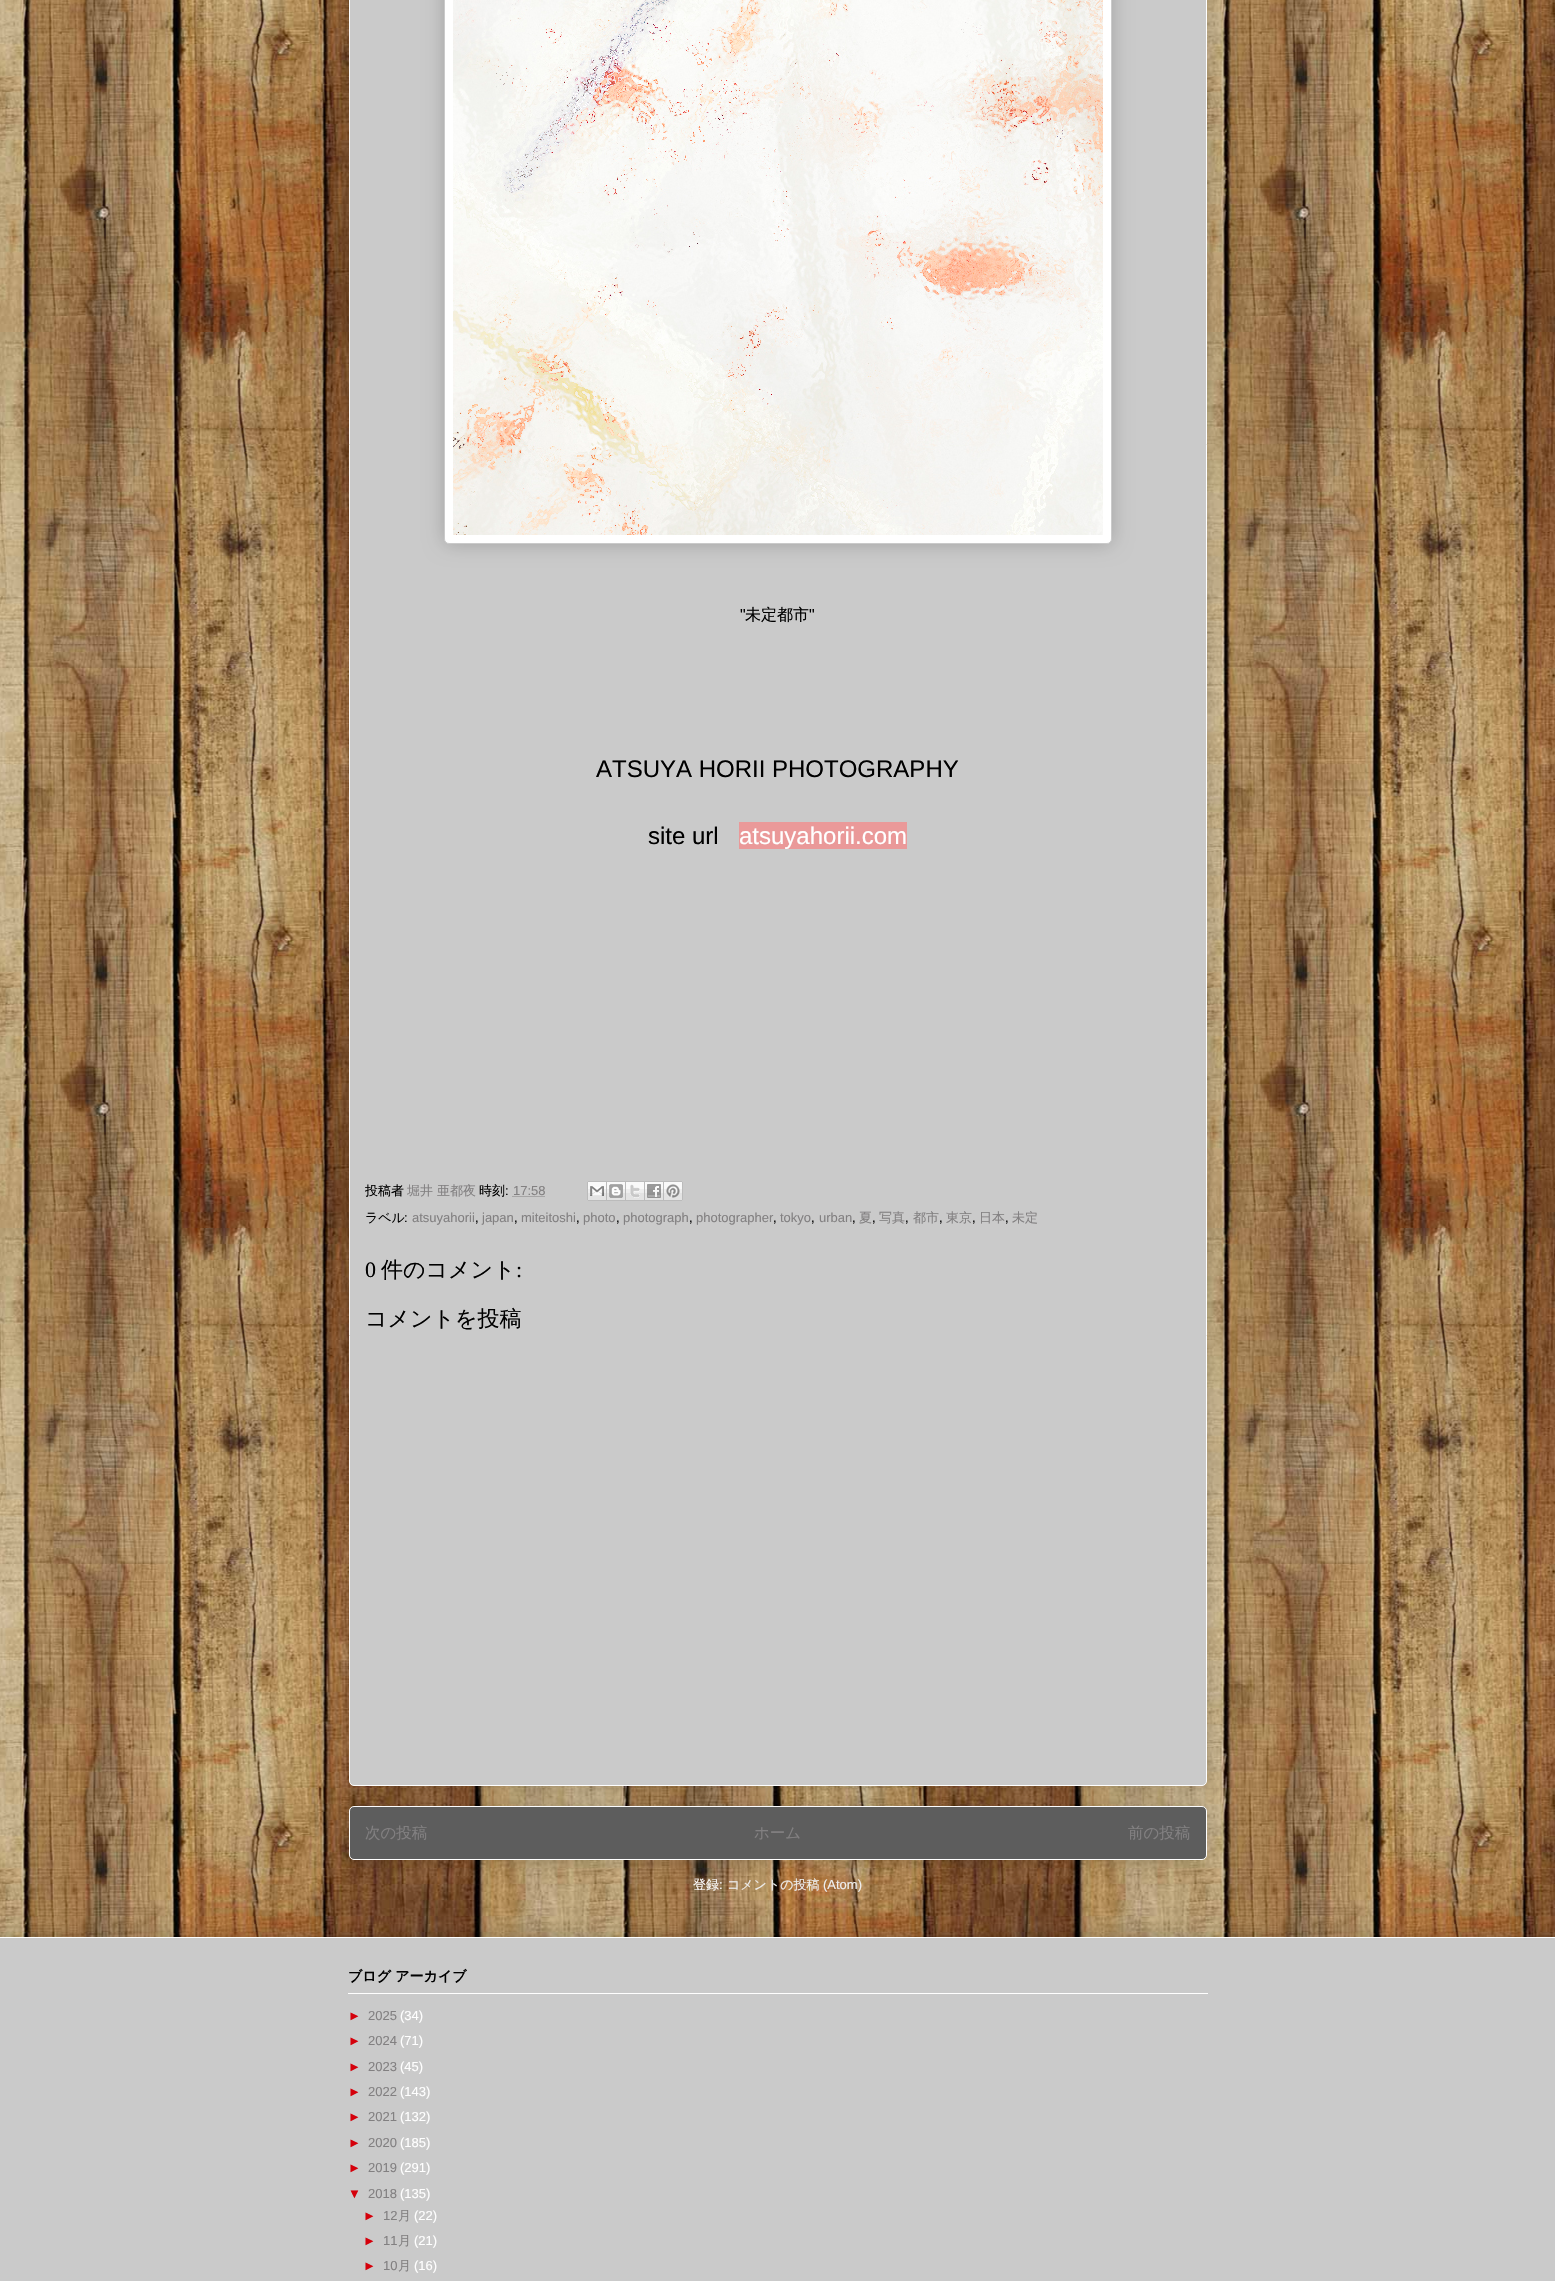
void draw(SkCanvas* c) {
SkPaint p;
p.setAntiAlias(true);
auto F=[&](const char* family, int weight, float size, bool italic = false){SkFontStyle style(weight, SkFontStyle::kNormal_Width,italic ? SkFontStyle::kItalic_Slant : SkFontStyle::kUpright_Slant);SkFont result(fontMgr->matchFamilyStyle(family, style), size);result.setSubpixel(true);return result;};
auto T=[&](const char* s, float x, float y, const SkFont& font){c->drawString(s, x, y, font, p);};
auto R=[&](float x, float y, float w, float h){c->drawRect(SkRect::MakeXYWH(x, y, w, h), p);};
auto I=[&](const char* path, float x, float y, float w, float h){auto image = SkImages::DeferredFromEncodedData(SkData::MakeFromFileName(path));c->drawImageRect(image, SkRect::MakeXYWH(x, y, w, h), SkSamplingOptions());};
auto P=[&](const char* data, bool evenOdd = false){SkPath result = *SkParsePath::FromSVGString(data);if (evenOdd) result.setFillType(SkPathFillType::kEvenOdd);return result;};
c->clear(0xffffffff);
I("1.png",0,0,1555,1937);
p.setColor(0x33000000);
p.setMaskFilter(SkMaskFilter::MakeBlur(kNormal_SkBlurStyle, 10));
c->drawRoundRect(SkRect::MakeXYWH(349,1806,858,54),5,5,p);
p.setMaskFilter(nullptr);
p.setColor(0xff5d5d5d);
c->drawRoundRect(SkRect::MakeXYWH(349.5,1806.5,857,53),4.5,4.5,p);
p.setStroke(true);
p.setStrokeWidth(1);
p.setColor(0xffffffff);
c->drawRoundRect(SkRect::MakeXYWH(349.5,1806.5,857,53),4.5,4.5,p);
p.setStroke(false);
p.setColor(0x33000000);
p.setMaskFilter(SkMaskFilter::MakeBlur(kNormal_SkBlurStyle, 10));
c->drawRoundRect(SkRect::MakeXYWH(349,-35,858,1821),5,5,p);
p.setMaskFilter(nullptr);
p.setColor(0xffcacaca);
c->drawRoundRect(SkRect::MakeXYWH(349.5,-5.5,857,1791),4.5,4.5,p);
p.setStroke(true);
p.setColor(0xffffffff);
c->drawRoundRect(SkRect::MakeXYWH(349.5,-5.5,857,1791),4.5,4.5,p);
p.setStroke(false);
p.setColor(0x33000000);
p.setMaskFilter(SkMaskFilter::MakeBlur(kNormal_SkBlurStyle, 10));
c->drawRoundRect(SkRect::MakeXYWH(444,-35,668,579),5,5,p);
p.setMaskFilter(nullptr);
p.setColor(0xffffffff);
c->drawRoundRect(SkRect::MakeXYWH(444.5,-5.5,667,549),4.5,4.5,p);
p.setStroke(true);
p.setColor(0xffcacaca);
c->drawRoundRect(SkRect::MakeXYWH(444.5,-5.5,667,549),4.5,4.5,p);
I("2.png",453,0,650,535);
auto f1 = F("Liberation Sans",400,16);
p.setStroke(false);
p.setColor(0xff000000);
T("\"",740,620,f1);
auto f2 = F("WenQuanYi Zen Hei",500,16);
T("未定都市",745,620,f2);
T("\"",809,620,f1);
auto f3 = F("Liberation Sans",400,24);
T("ATSUYA HORII PHOTOGRAPHY",596,777,f3);
T("site url",648,844,f3);
p.setColor(0xffea9999);
R(739,822,168,27);
p.setColor(0xffffffff);
T("atsuyahorii.com",739,844,f3);
auto f4 = F("WenQuanYi Zen Hei",500,13);
p.setColor(0xff000000);
T("投稿者",365,1195,f4);
p.setColor(0xff828081);
T("堀井 亜都夜",407,1195,f4);
p.setColor(0xff000000);
T("時刻",479,1195,f4);
auto f5 = F("Liberation Sans",400,13);
T(":",505,1195,f5);
p.setColor(0xff828081);
T("17:58",513,1195,f5);
p.setStroke(true);
p.setPathEffect(SkDashPathEffect::Make({{1,1}}, 0));
c->drawPath(P("M512.5 1196.5h32.5"),p);
p.setPathEffect(nullptr);
I("3.png",587,1181,20,20);
I("4.png",607,1181,19,20);
I("5.png",626,1181,19,20);
I("6.png",645,1181,19,20);
I("7.png",664,1181,19,20);
p.setStroke(false);
p.setColor(0xff000000);
T("ラベル",365,1222,f4);
T(":",404,1222,f5);
p.setColor(0xff828081);
T("atsuyahorii",412,1222,f5);
p.setColor(0xff000000);
T(",",475,1222,f5);
p.setColor(0xff828081);
T("japan",482,1222,f5);
p.setColor(0xff000000);
T(",",514,1222,f5);
p.setColor(0xff828081);
T("miteitoshi",521,1222,f5);
p.setColor(0xff000000);
T(",",576,1222,f5);
p.setColor(0xff828081);
T("photo",583,1222,f5);
p.setColor(0xff000000);
T(",",616,1222,f5);
p.setColor(0xff828081);
T("photograph",623,1222,f5);
p.setColor(0xff000000);
T(",",689,1222,f5);
p.setColor(0xff828081);
T("photographer",696,1222,f5);
p.setColor(0xff000000);
T(",",773,1222,f5);
p.setColor(0xff828081);
T("tokyo",780,1222,f5);
p.setColor(0xff000000);
T(",",811,1222,f5);
p.setColor(0xff828081);
T("urban",819,1222,f5);
p.setColor(0xff000000);
T(",",852,1222,f5);
p.setColor(0xff828081);
T("夏",859,1222,f4);
p.setColor(0xff000000);
T(",",872,1222,f5);
p.setColor(0xff828081);
T("写真",879,1222,f4);
p.setColor(0xff000000);
T(",",905,1222,f5);
p.setColor(0xff828081);
T("都市",913,1222,f4);
p.setColor(0xff000000);
T(",",939,1222,f5);
p.setColor(0xff828081);
T("東京",946,1222,f4);
p.setColor(0xff000000);
T(",",972,1222,f5);
p.setColor(0xff828081);
T("日本",979,1222,f4);
p.setColor(0xff000000);
T(",",1005,1222,f5);
p.setColor(0xff828081);
T("未定",1012,1222,f4);
auto f6 = F("Liberation Serif",400,22);
p.setColor(0xff000000);
T("0",365,1277,f6);
auto f7 = F("WenQuanYi Zen Hei",500,22);
T("件のコメント",381,1277,f7);
T(":",516,1277,f6);
T("コメントを投稿",365,1326,f7);
auto f8 = F("WenQuanYi Zen Hei",500,15.5);
p.setColor(0xff828081);
T("次の投稿",365,1838,f8);
T("ホーム",754,1838,f8);
T("前の投稿",1128,1838,f8);
p.setColor(0xffffffff);
T("登録",693,1889,f4);
T(":",719,1889,f5);
p.setColor(0xffeeeeee);
T("コメントの投稿",727,1889,f4);
T("(Atom)",823,1889,f5);
p.setColor(0x33000000);
p.setMaskFilter(SkMaskFilter::MakeBlur(kNormal_SkBlurStyle, 10));
c->drawRect(SkRect::MakeXYWH(-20,1937,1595,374),p);
p.setMaskFilter(nullptr);
p.setColor(0xffcacaca);
R(0,1938,1555,343);
p.setColor(0xffffffff);
R(0,1937,1555,1);
auto f9 = F("WenQuanYi Zen Hei",700,14);
p.setColor(0xff000000);
T("ブログ アーカイブ",348,1981,f9);
p.setColor(0xffffffff);
R(348,1993,860,1);
p.setColor(0xffd5000b);
T("►",348,2020,f5);
p.setColor(0xff828081);
T("2025",368,2020,f5);
p.setColor(0xffffffff);
T("(34)",400,2020,f5);
p.setColor(0xffd5000b);
T("►",348,2045,f5);
p.setColor(0xff828081);
T("2024",368,2045,f5);
p.setColor(0xffffffff);
T("(71)",400,2045,f5);
p.setColor(0xffd5000b);
T("►",348,2071,f5);
p.setColor(0xff828081);
T("2023",368,2071,f5);
p.setColor(0xffffffff);
T("(45)",400,2071,f5);
p.setColor(0xffd5000b);
T("►",348,2096,f5);
p.setColor(0xff828081);
T("2022",368,2096,f5);
p.setColor(0xffffffff);
T("(143)",400,2096,f5);
p.setColor(0xffd5000b);
T("►",348,2121,f5);
p.setColor(0xff828081);
T("2021",368,2121,f5);
p.setColor(0xffffffff);
T("(132)",400,2121,f5);
p.setColor(0xffd5000b);
T("►",348,2147,f5);
p.setColor(0xff828081);
T("2020",368,2147,f5);
p.setColor(0xffffffff);
T("(185)",400,2147,f5);
p.setColor(0xffd5000b);
T("►",348,2172,f5);
p.setColor(0xff828081);
T("2019",368,2172,f5);
p.setColor(0xffffffff);
T("(291)",400,2172,f5);
p.setColor(0xffd5000b);
T("▼",348,2198,f5);
p.setColor(0xff828081);
T("2018",368,2198,f5);
p.setColor(0xffffffff);
T("(135)",400,2198,f5);
p.setColor(0xffd5000b);
T("►",363,2220,f5);
p.setColor(0xff828081);
T("12",383,2220,f5);
T("月",398,2220,f4);
p.setColor(0xffffffff);
T("(22)",414,2220,f5);
p.setColor(0xffd5000b);
T("►",363,2245,f5);
p.setColor(0xff828081);
T("11",383,2245,f5);
T("月",398,2245,f4);
p.setColor(0xffffffff);
T("(21)",414,2245,f5);
p.setColor(0xffd5000b);
T("►",363,2270,f5);
p.setColor(0xff828081);
T("10",383,2270,f5);
T("月",398,2270,f4);
p.setColor(0xffffffff);
T("(16)",414,2270,f5);
}
